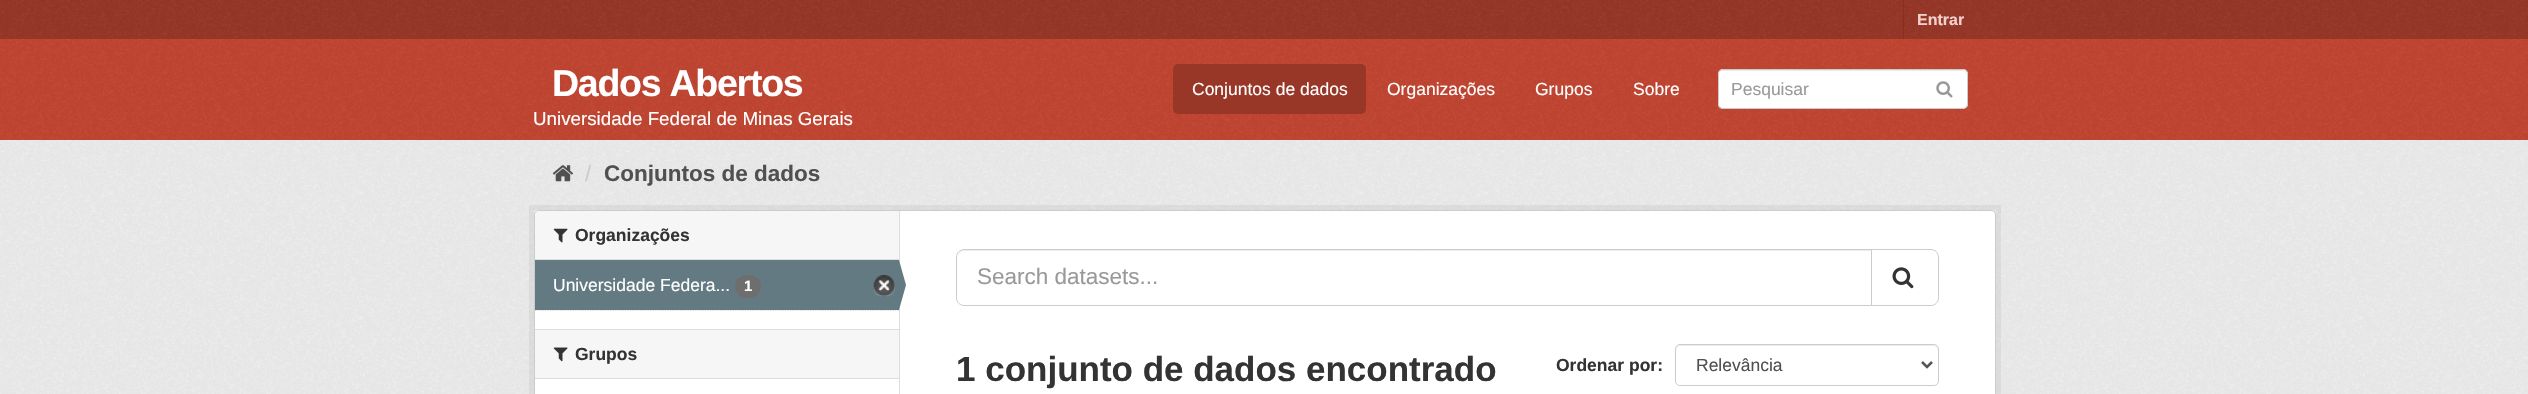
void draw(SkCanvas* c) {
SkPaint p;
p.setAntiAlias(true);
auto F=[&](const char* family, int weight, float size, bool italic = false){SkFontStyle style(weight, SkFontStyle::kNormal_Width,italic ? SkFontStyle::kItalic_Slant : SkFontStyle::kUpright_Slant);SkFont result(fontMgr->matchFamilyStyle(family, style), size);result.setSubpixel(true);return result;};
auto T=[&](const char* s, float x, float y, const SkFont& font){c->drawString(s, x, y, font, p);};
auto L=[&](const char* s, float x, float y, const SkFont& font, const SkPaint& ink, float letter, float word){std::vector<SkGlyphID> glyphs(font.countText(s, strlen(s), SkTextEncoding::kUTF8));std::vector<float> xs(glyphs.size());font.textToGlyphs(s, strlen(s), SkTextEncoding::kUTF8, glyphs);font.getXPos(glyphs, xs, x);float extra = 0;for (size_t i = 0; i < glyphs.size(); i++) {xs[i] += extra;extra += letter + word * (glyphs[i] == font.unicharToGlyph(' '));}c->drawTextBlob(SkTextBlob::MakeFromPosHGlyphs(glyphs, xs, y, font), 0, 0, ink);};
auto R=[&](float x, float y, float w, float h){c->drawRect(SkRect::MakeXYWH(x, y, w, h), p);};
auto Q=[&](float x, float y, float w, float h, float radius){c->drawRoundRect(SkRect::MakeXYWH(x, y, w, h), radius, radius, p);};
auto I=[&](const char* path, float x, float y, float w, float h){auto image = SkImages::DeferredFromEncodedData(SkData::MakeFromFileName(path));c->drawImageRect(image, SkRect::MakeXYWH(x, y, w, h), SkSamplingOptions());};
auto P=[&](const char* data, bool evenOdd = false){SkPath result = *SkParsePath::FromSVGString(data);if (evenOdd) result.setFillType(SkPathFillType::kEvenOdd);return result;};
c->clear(0xff983627);
I("1.png",0,0,2528,38);
p.setColor(0xff842f22);
R(1903,0,1,39);
auto f1 = F("Liberation Sans",700,16);
p.setColor(0xfff0d1cc);
T("Entrar",1917,25,f1);
p.setColor(0xffc14531);
R(0,39,2528,101);
I("2.png",0,39,2528,101);
auto f2 = F("Liberation Sans",700,37.5);
p.setColor(0xffffffff);
L("Dados Abertos",552,96,f2,p,-1.25,0);
auto f3 = F("Liberation Sans",400,18.75);
T("Universidade Federal de Minas Gerais",533,125,f3);
p.setColor(0xff983627);
Q(1173,64,193,50,5);
auto f4 = F("Liberation Sans",400,17.5);
p.setColor(0xffffffff);
T("Conjuntos de dados",1192,95,f4);
T("Organizações",1387,95,f4);
T("Grupos",1535,95,f4);
T("Sobre",1633,95,f4);
Q(1718,69,250,40,5);
p.setColor(0xffececec);
c->drawPath(P("M1722 71h240c3 0 4 2 4 4v-1c0-2-2-4-4-4h-239c-2 0-4 2-4 4v1c0-2 1-4 3-4z"),p);
p.setStroke(true);
p.setStrokeWidth(1);
p.setColor(0xffcccccc);
c->drawRoundRect(SkRect::MakeXYWH(1718.5,69.5,249,39),4.5,4.5,p);
p.setStroke(false);
p.setColor(0xff999999);
T("Pesquisar",1731,95,f4);
I("3.png",1936,81,17,17);
p.setColor(0xffeeeeee);
R(0,140,2528,254);
I("4.png",0,140,2528,254);
I("5.png",552,165,21,17);
auto f5 = F("Liberation Sans",400,22.5);
p.setColor(0xffcccccc);
T("/",585,181,f5);
auto f6 = F("Liberation Sans",700,22.5);
p.setColor(0xff505050);
T("Conjuntos de dados",604,181,f6);
p.setStroke(true);
p.setStrokeWidth(5);
p.setColor(0x0d000000);
c->drawRect(SkRect::MakeXYWH(531.5,207.5,1467,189),p);
p.setStroke(false);
p.setColor(0xffffffff);
c->drawRoundRect(SkRect::MakeXYWH(534.5,210.5,1461,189),4.5,4.5,p);
p.setStroke(true);
p.setStrokeWidth(1);
p.setColor(0xffcccccc);
c->drawRoundRect(SkRect::MakeXYWH(534.5,210.5,1461,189),4.5,4.5,p);
p.setStroke(false);
p.setColor(0xfff6f6f6);
c->drawPath(P("M539 211h360v49h-364v-45c0-2 2-4 4-4z"),p);
p.setColor(0xffdddddd);
R(535,259,364,1);
I("6.png",553,228,15,15);
auto f7 = F("Liberation Sans",700,17.5);
p.setColor(0xff333333);
T("Organizações",575,241,f7);
p.setStroke(true);
p.setStrokeWidth(1.2);
p.setColor(0xffdddddd);
p.setPathEffect(SkDashPathEffect::Make({{1.25f,1.25f}}, 0));
c->drawPath(P("M535 310.5h364"),p);
p.setPathEffect(nullptr);
p.setStroke(false);
p.setColor(0xff647a82);
R(535,260,364,50);
p.setColor(0xffffffff);
T("Universidade Federa...",553,291,f4);
p.setColor(0xff6e6e6e);
Q(735,275,26,23,11.5);
auto f8 = F("Liberation Sans",700,15);
p.setColor(0xffffffff);
T("1",744,291,f8);
I("7.png",873,275,22,22);
p.setColor(0xffdddddd);
R(899,211,1,183);
p.setColor(0xff647a82);
c->drawPath(P("M899 310v-50l7 25z"),p);
p.setColor(0xfff6f6f6);
R(535,330,364,48);
p.setColor(0xffdddddd);
R(535,329,364,1);
R(535,378,364,1);
I("8.png",553,347,15,15);
p.setColor(0xff333333);
T("Grupos",575,360,f7);
p.setColor(0xffececec);
c->drawPath(P("M964 251h907v-1h-907c-5 0-6 4-6 8c0-4 2-7 6-7z"),p);
p.setStroke(true);
p.setStrokeWidth(1);
p.setColor(0xffcccccc);
c->drawPath(P("M964 249.5h908.5v56h-908.5c-4 0-7.5-3.5-7.5-7.5v-41c0-4 3.5-7.5 7.5-7.5z"),p);
p.setStroke(false);
p.setColor(0xff999999);
T("Search datasets...",977,284,f5);
p.setColor(0xffffffff);
c->drawPath(P("M1871.5 249.5h59.5c4 0 7.5 3.5 7.5 7.5v41c0 4-3.5 7.5-7.5 7.5h-59.5z"),p);
p.setStroke(true);
p.setColor(0xffcccccc);
c->drawPath(P("M1871.5 249.5h59.5c4 0 7.5 3.5 7.5 7.5v41c0 4-3.5 7.5-7.5 7.5h-59.5z"),p);
I("9.png",1892,267,22,22);
auto f9 = F("Liberation Sans",700,35);
p.setStroke(false);
p.setColor(0xff333333);
T("1 conjunto de dados encontrado",956,381,f9);
T("Ordenar por:",1556,371,f7);
p.setColor(0xffececec);
c->drawPath(P("M1680 346h254c2 0 4 2 4 4v-1c0-2-2-4-4-4h-254c-2 0-4 2-4 4v1c0-2 2-4 4-4z"),p);
p.setStroke(true);
p.setColor(0xffcccccc);
c->drawRoundRect(SkRect::MakeXYWH(1675.5,344.5,263,41),4.5,4.5,p);
p.setStrokeWidth(2.5);
p.setColor(0xff555555);
c->drawPath(P("M1922 362l5 5l5-5"),p);
p.setStroke(false);
p.setColor(0xff505050);
T("Relevância",1696,371,f4);
}
